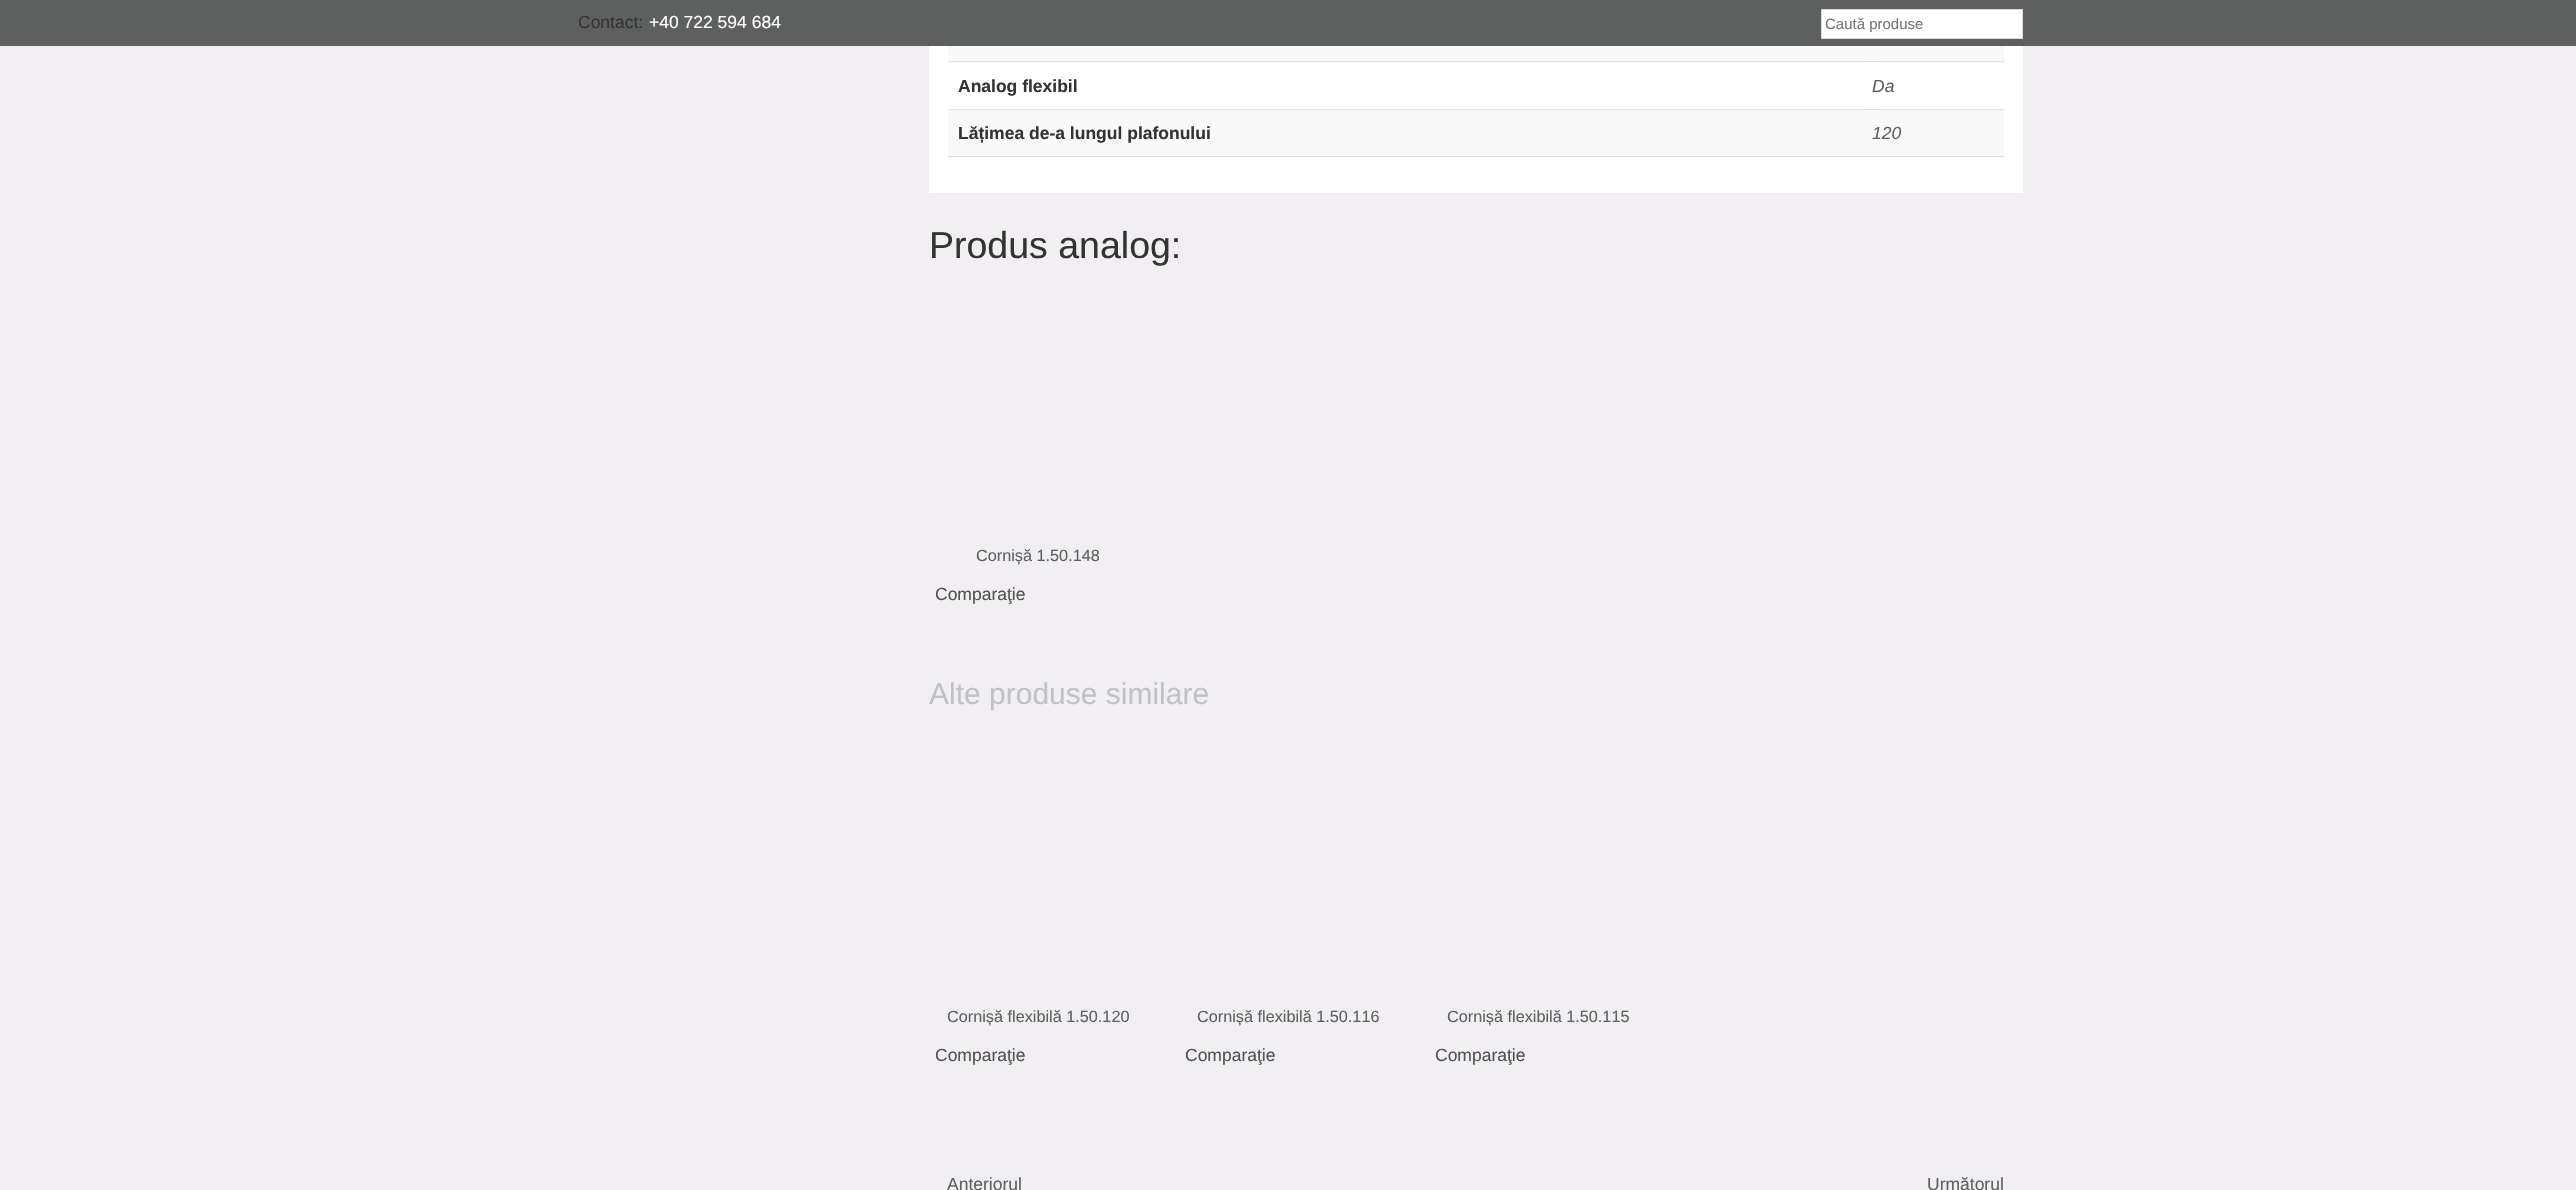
void draw(SkCanvas* c) {
SkPaint p;
p.setAntiAlias(true);
auto F=[&](const char* family, int weight, float size, bool italic = false){SkFontStyle style(weight, SkFontStyle::kNormal_Width,italic ? SkFontStyle::kItalic_Slant : SkFontStyle::kUpright_Slant);SkFont result(fontMgr->matchFamilyStyle(family, style), size);result.setSubpixel(true);return result;};
auto T=[&](const char* s, float x, float y, const SkFont& font){c->drawString(s, x, y, font, p);};
auto R=[&](float x, float y, float w, float h){c->drawRect(SkRect::MakeXYWH(x, y, w, h), p);};
c->clear(0xfff1eff2);
p.setColor(0xff5e6060);
R(0,0,2576,46);
auto f1 = F("Liberation Sans",400,17.5);
p.setColor(0xff333333);
T("Contact:",578,28,f1);
p.setColor(0xffffffff);
T("+40 722 594 684",649,28,f1);
c->drawRect(SkRect::MakeXYWH(1821.5,9.5,201,29),p);
p.setStroke(true);
p.setStrokeWidth(1);
p.setColor(0xffdddddd);
c->drawRect(SkRect::MakeXYWH(1821.5,9.5,201,29),p);
auto f2 = F("Liberation Sans",400,15);
p.setStroke(false);
p.setColor(0xff757575);
T("Caută produse",1825,29,f2);
p.setColor(0xffffffff);
R(929,46,1094,147);
p.setColor(0xffe6e6e6);
R(2004,61,1,1);
R(948,109,1057,1);
R(2004,156,1,1);
p.setColor(0xfff9f9f9);
R(948,46,1056,17);
p.setColor(0xffe0e0e0);
R(948,61,1056,1);
p.setColor(0xffcacaca);
R(1871,61,2,1);
auto f3 = F("Liberation Sans",700,17.5);
p.setColor(0xff333333);
T("Analog flexibil",958,92,f3);
p.setColor(0xffcfcfcf);
R(1871,109,2,1);
auto f4 = F("Liberation Sans",400,17.5,true);
p.setColor(0xff5e6060);
T("Da",1872,92,f4);
p.setColor(0xfff9f9f9);
R(948,110,1056,48);
p.setColor(0xffe0e0e0);
R(948,156,1056,1);
p.setColor(0xff333333);
T("Lățimea de-a lungul plafonului",958,139,f3);
p.setColor(0xffcacaca);
R(1871,156,2,1);
p.setColor(0xff5e6060);
T("120",1872,139,f4);
auto f5 = F("Liberation Sans",400,37.5);
p.setColor(0xff333333);
T("Produs analog:",929,258,f5);
auto f6 = F("Liberation Sans",400,16.25);
p.setColor(0xff5e6060);
T("Cornișă 1.50.148",976,561,f6);
p.setColor(0xff515151);
T("Comparaţie",935,600,f1);
auto f7 = F("Liberation Sans",400,30);
p.setColor(0xffc1c2c4);
T("Alte produse similare",929,704,f7);
p.setColor(0xff5e6060);
T("Cornișă flexibilă 1.50.120",947,1022,f6);
p.setColor(0xff515151);
T("Comparaţie",935,1061,f1);
p.setColor(0xff5e6060);
T("Cornișă flexibilă 1.50.116",1197,1022,f6);
p.setColor(0xff515151);
T("Comparaţie",1185,1061,f1);
p.setColor(0xff5e6060);
T("Cornișă flexibilă 1.50.115",1447,1022,f6);
p.setColor(0xff515151);
T("Comparaţie",1435,1061,f1);
p.setColor(0xff5e6060);
T("Anteriorul",947,1190,f1);
T("Următorul",1927,1190,f1);
}
